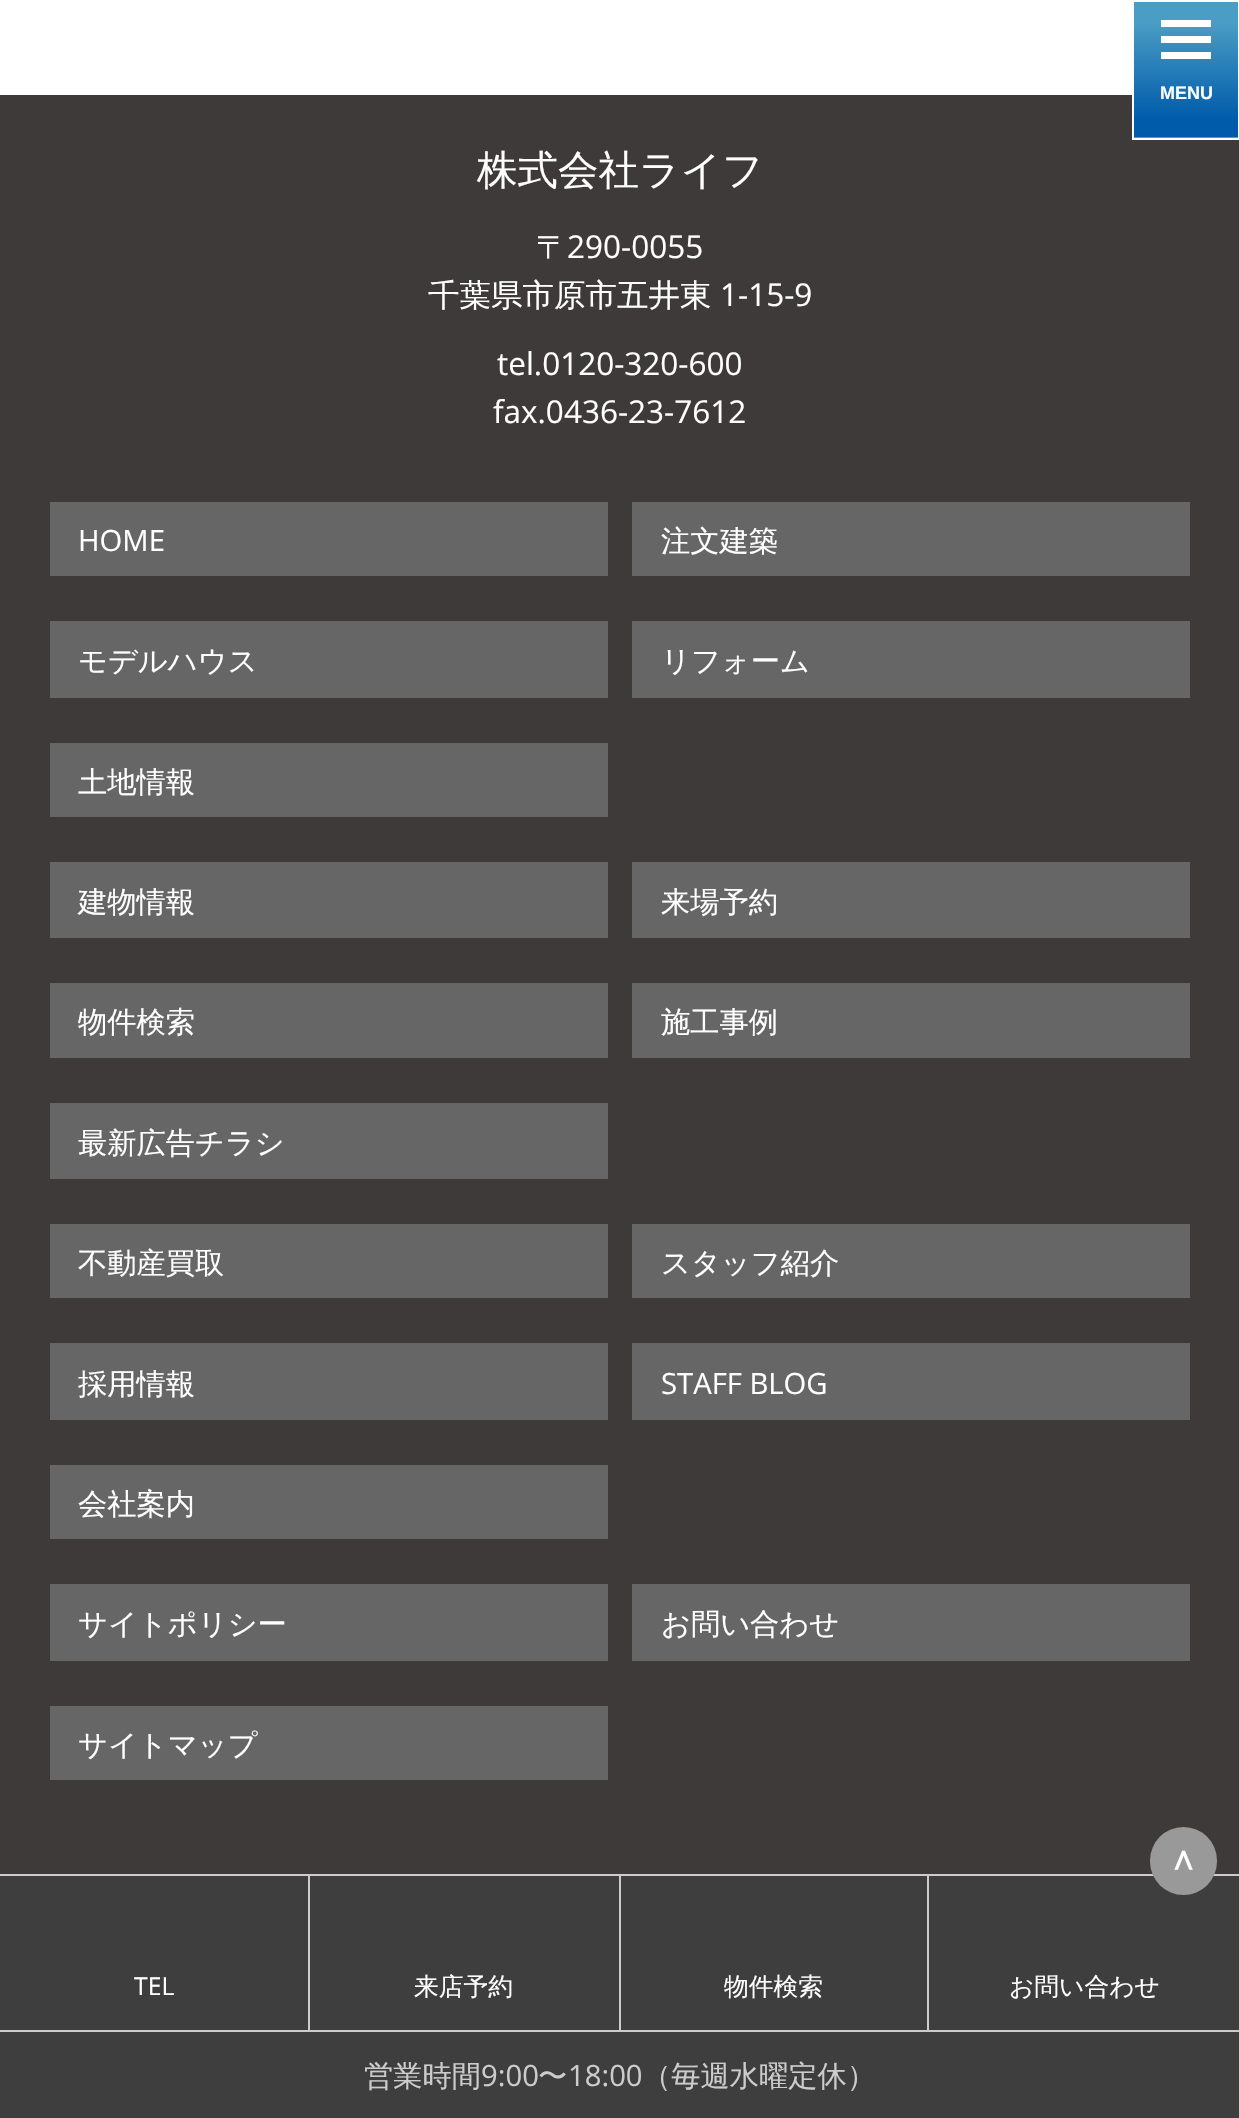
void draw(SkCanvas* c) {
SkPaint p;
p.setAntiAlias(true);
auto F=[&](const char* family, int weight, float size, bool italic = false){SkFontStyle style(weight, SkFontStyle::kNormal_Width,italic ? SkFontStyle::kItalic_Slant : SkFontStyle::kUpright_Slant);SkFont result(fontMgr->matchFamilyStyle(family, style), size);result.setSubpixel(true);return result;};
auto T=[&](const char* s, float x, float y, const SkFont& font){c->drawString(s, x, y, font, p);};
auto R=[&](float x, float y, float w, float h){c->drawRect(SkRect::MakeXYWH(x, y, w, h), p);};
auto Q=[&](float x, float y, float w, float h, float radius){c->drawRoundRect(SkRect::MakeXYWH(x, y, w, h), radius, radius, p);};
c->clear(0xffffffff);
p.setColor(0xff3e3a39);
R(0,95,1239,1779);
{
const SkColor colors[] = {0xff4a9dc4,0xff005bab};
const float stops[] = {.15,.87};
const SkPoint ends[] = {{1186,2.2}, {1186,137}};
p.setShader(SkGradientShader::MakeLinear(ends, colors, stops, 2, SkTileMode::kClamp));
p.setAlpha(255);
}
R(1134,2,104,135);
{
const SkColor colors[] = {0xff4a9dc4,0xff005bab};
const float stops[] = {.15,.87};
const SkPoint ends[] = {{1186,137}, {1186,272}};
p.setShader(SkGradientShader::MakeLinear(ends, colors, stops, 2, SkTileMode::kClamp));
p.setAlpha(255);
}
R(1132,137,107,1);
p.setStroke(true);
p.setStrokeWidth(2);
p.setShader(nullptr);
p.setColor(0xffffffff);
c->drawRect(SkRect::MakeXYWH(1133,1,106,138),p);
p.setStroke(false);
R(1161,36,50,7);
R(1161,20,50,7);
R(1161,52,50,7);
auto f1 = F("Liberation Sans",700,18);
T("MENU",1160,99,f1);
auto f2 = F("WenQuanYi Zen Hei",500,40.5);
T("株式会社ライフ",477,184,f2);
auto f3 = F("WenQuanYi Zen Hei",500,31.5);
T("〒",536,258,f3);
auto f4 = F("Open Sans",400,31.5);
T("290-0055",567,258,f4);
T("千葉県市原市五井東",428,306,f3);
T("1-15-9",720,306,f4);
T("tel.0120-320-600",497,375,f4);
T("fax.0436-23-7612",493,423,f4);
p.setColor(0xff666666);
R(50,502,558,74);
auto f5 = F("Open Sans",400,29.25);
p.setColor(0xffffffff);
T("HOME",78,551,f5);
p.setColor(0xff666666);
R(632,502,558,74);
auto f6 = F("WenQuanYi Zen Hei",500,29.25);
p.setColor(0xffffffff);
T("注文建築",661,551,f6);
p.setColor(0xff666666);
R(50,621,558,77);
p.setColor(0xffffffff);
T("モデルハウス",78,671,f6);
p.setColor(0xff666666);
R(632,621,558,77);
p.setColor(0xffffffff);
T("リフォーム",661,671,f6);
p.setColor(0xff666666);
R(50,743,558,74);
p.setColor(0xffffffff);
T("土地情報",78,792,f6);
p.setColor(0xff666666);
R(50,862,558,76);
p.setColor(0xffffffff);
T("建物情報",78,912,f6);
p.setColor(0xff666666);
R(632,862,558,76);
p.setColor(0xffffffff);
T("来場予約",661,912,f6);
p.setColor(0xff666666);
R(50,983,558,75);
p.setColor(0xffffffff);
T("物件検索",78,1032,f6);
p.setColor(0xff666666);
R(632,983,558,75);
p.setColor(0xffffffff);
T("施工事例",661,1032,f6);
p.setColor(0xff666666);
R(50,1103,558,76);
p.setColor(0xffffffff);
T("最新広告チラシ",78,1153,f6);
p.setColor(0xff666666);
R(50,1224,558,74);
p.setColor(0xffffffff);
T("不動産買取",78,1273,f6);
p.setColor(0xff666666);
R(632,1224,558,74);
p.setColor(0xffffffff);
T("スタッフ紹介",661,1273,f6);
p.setColor(0xff666666);
R(50,1343,558,77);
p.setColor(0xffffffff);
T("採用情報",78,1394,f6);
p.setColor(0xff666666);
R(632,1343,558,77);
p.setColor(0xffffffff);
T("STAFF BLOG",661,1394,f5);
p.setColor(0xff666666);
R(50,1465,558,74);
p.setColor(0xffffffff);
T("会社案内",78,1514,f6);
p.setColor(0xff666666);
R(50,1584,558,77);
p.setColor(0xffffffff);
T("サイトポリシー",78,1634,f6);
p.setColor(0xff666666);
R(632,1584,558,77);
p.setColor(0xffffffff);
T("お問い合わせ",661,1634,f6);
p.setColor(0xff666666);
R(50,1706,558,74);
p.setColor(0xffffffff);
T("サイトマップ",78,1755,f6);
p.setColor(0xff3e3e3e);
R(0,1876,1239,242);
p.setColor(0xffcccccc);
R(0,1874,1239,2);
p.setColor(0xff999999);
Q(1150,1827,67,68,33.5);
auto f7 = F("WenQuanYi Zen Hei",700,31.5);
p.setColor(0xffffffff);
T("∧",1170,1870,f7);
p.setColor(0xffcccccc);
R(308,1874,2,158);
R(0,2030,311,2);
auto f8 = F("Open Sans",400,24.75);
p.setColor(0xffffffff);
T("TEL",134,1995,f8);
p.setColor(0xffcccccc);
R(619,1874,2,158);
R(311,2030,310,2);
auto f9 = F("WenQuanYi Zen Hei",500,24.75);
p.setColor(0xffffffff);
T("来店予約",414,1995,f9);
p.setColor(0xffcccccc);
R(927,1874,2,158);
R(621,2030,618,2);
p.setColor(0xffffffff);
T("物件検索",724,1995,f9);
T("お問い合わせ",1009,1995,f9);
p.setColor(0xffcccccc);
T("営業時間",364,2086,f6);
T("9:00",481,2086,f5);
T("〜",538,2086,f6);
T("18:00",568,2086,f5);
T("（毎週水曜定休）",642,2086,f6);
}
